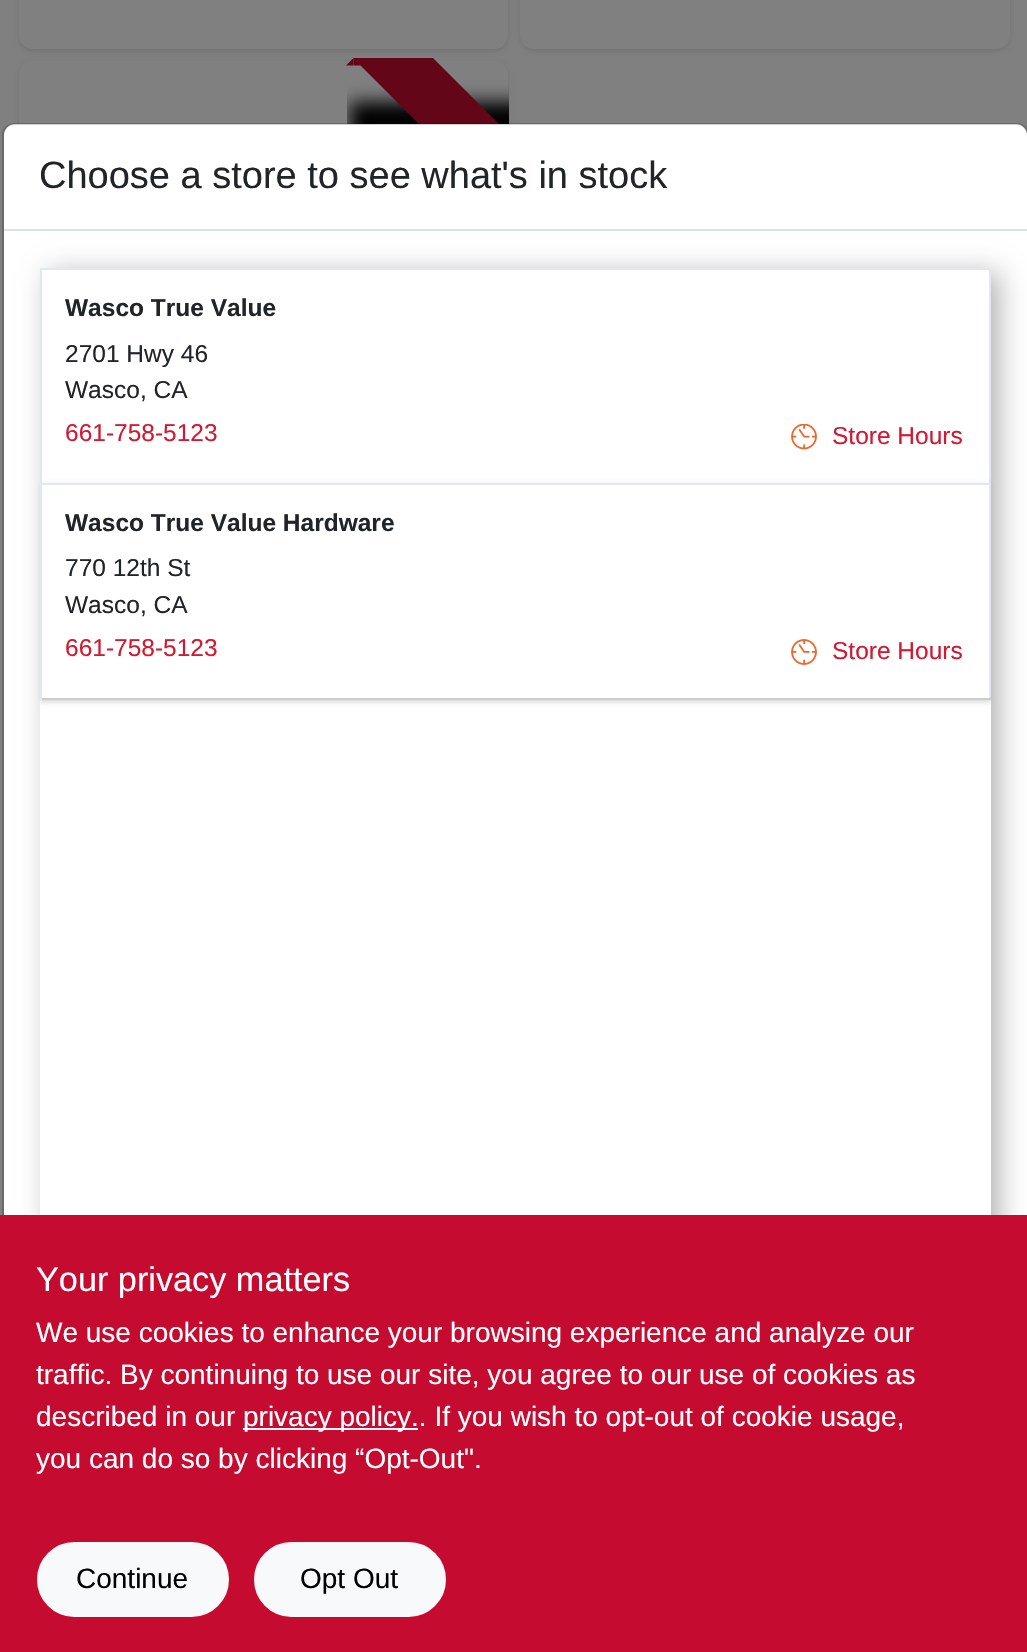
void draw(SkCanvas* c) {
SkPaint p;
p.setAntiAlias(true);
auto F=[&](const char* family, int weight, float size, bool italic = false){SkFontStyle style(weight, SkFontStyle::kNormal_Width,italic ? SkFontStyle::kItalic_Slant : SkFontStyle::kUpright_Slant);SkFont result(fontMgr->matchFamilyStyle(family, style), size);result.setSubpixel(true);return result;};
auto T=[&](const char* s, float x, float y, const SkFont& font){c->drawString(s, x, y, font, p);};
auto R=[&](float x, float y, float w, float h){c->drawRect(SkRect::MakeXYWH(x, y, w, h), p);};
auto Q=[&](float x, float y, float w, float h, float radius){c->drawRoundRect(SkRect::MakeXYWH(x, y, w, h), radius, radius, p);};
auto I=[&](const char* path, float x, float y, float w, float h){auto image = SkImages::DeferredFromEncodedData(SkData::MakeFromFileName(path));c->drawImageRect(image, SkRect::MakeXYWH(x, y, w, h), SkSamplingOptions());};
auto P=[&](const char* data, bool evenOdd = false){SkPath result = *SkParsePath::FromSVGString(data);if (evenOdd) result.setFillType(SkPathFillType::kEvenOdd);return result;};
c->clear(0xff808080);
p.setColor(0x1a000000);
p.setMaskFilter(SkMaskFilter::MakeBlur(kNormal_SkBlurStyle, 2.5));
c->drawRoundRect(SkRect::MakeXYWH(19,-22,489,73),14,14,p);
p.setMaskFilter(nullptr);
p.setColor(0xff808080);
Q(19,-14,489,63,14);
p.setColor(0x1a000000);
p.setMaskFilter(SkMaskFilter::MakeBlur(kNormal_SkBlurStyle, 2.5));
c->drawRoundRect(SkRect::MakeXYWH(520,-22,490,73),14,14,p);
p.setMaskFilter(nullptr);
p.setColor(0xff808080);
Q(520,-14,490,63,14);
p.setColor(0x1a000000);
p.setMaskFilter(SkMaskFilter::MakeBlur(kNormal_SkBlurStyle, 2.5));
c->drawRoundRect(SkRect::MakeXYWH(19,63,489,574),14,14,p);
p.setMaskFilter(nullptr);
p.setColor(0xff808080);
Q(19,61,489,574,14);
c->save();
c->clipRect(SkRect::MakeXYWH(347,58,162,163));
p.setColor(0xff000000);
p.setMaskFilter(SkMaskFilter::MakeBlur(kNormal_SkBlurStyle, 9));
c->drawRect(SkRect::MakeXYWH(350,102,201,38),p);
p.setMaskFilter(nullptr);
c->restore();
c->save();
c->clipRect(SkRect::MakeXYWH(347,58,162,163));
p.setColor(0xff630618);
c->drawPath(P("M393 18l155 155l-40 40l-155-155z"),p);
c->restore();
c->drawPath(P("M353.5 58l7.5 7.5h-7.5z"),p);
c->drawPath(P("M346 65.5l7.5-7.5v7.5z"),p);
p.setColor(0xffffffff);
Q(4,124,1023,1406,11);
p.setStroke(true);
p.setStrokeWidth(2);
p.setColor(0x2e000000);
c->drawRoundRect(SkRect::MakeXYWH(3,124,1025,1406),11,11,p);
p.setStroke(false);
p.setColor(0xffdee2e6);
R(4,229,1023,2);
auto f1 = F("Liberation Sans",400,38);
p.setColor(0xff212529);
T("Choose a store to see what's in stock",39,188,f1);
p.setColor(0x4d000000);
p.setMaskFilter(SkMaskFilter::MakeBlur(kNormal_SkBlurStyle, 13));
c->drawRect(SkRect::MakeXYWH(49,273,950,1050),p);
p.setMaskFilter(nullptr);
p.setColor(0xffffffff);
R(40,700,951,515);
R(42,270,947,213);
p.setColor(0xffe2e8f0);
R(40,268,951,2);
R(989,268,2,215);
R(40,268,2,215);
auto f2 = F("Liberation Sans",700,24.5);
p.setColor(0xff212529);
T("Wasco True Value",65,316,f2);
auto f3 = F("Liberation Sans",400,24.5);
T("2701 Hwy 46",65,362,f3);
T("Wasco, CA",65,398,f3);
p.setColor(0xffd31931);
T("661-758-5123",65,441,f3);
I("1.png",791,424,26,26);
T("Store Hours",832,444,f3);
p.setColor(0x0f000000);
p.setMaskFilter(SkMaskFilter::MakeBlur(kNormal_SkBlurStyle, 2));
c->drawRect(SkRect::MakeXYWH(40,485,951,217),p);
p.setMaskFilter(nullptr);
c->save();
c->clipRect(SkRect::MakeXYWH(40,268,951,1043));
p.setColor(0x1a000000);
p.setMaskFilter(SkMaskFilter::MakeBlur(kNormal_SkBlurStyle, 2.5));
c->drawRect(SkRect::MakeXYWH(40,485,951,217),p);
p.setMaskFilter(nullptr);
c->restore();
p.setColor(0xffffffff);
R(42,485,947,213);
p.setColor(0xffe2e8f0);
R(40,483,951,2);
R(989,483,2,217);
p.setColor(0xffcccccc);
R(40,698,951,2);
p.setColor(0xffe2e8f0);
R(40,483,2,217);
p.setColor(0xff212529);
T("Wasco True Value Hardware",65,531,f2);
T("770 12th St",65,576,f3);
T("Wasco, CA",65,613,f3);
p.setColor(0xffd31931);
T("661-758-5123",65,656,f3);
I("2.png",791,639,26,26);
T("Store Hours",832,659,f3);
p.setColor(0xffc60b30);
R(0,1215,1027,437);
auto f4 = F("Liberation Sans",400,34.25);
p.setColor(0xffffffff);
T("Your privacy matters",36,1291,f4);
auto f5 = F("Liberation Sans",400,28);
T("We use cookies to enhance your browsing experience and analyze our",36,1342,f5);
T("traffic. By continuing to use our site, you agree to our use of cookies as",36,1384,f5);
T("described in our",36,1426,f5);
R(243,1428,175,2);
T("privacy policy.. If you wish to opt-out of cookie usage,",243,1426,f5);
T("you can do so by clicking “Opt-Out\".",36,1468,f5);
p.setColor(0xfff8f9fa);
c->drawRoundRect(SkRect::MakeXYWH(38,1543,190,73),36.5,36.5,p);
p.setStroke(true);
c->drawRoundRect(SkRect::MakeXYWH(38,1543,190,73),36.5,36.5,p);
p.setStroke(false);
p.setColor(0xff000000);
T("Continue",76,1588,f5);
p.setColor(0xfff8f9fa);
c->drawRoundRect(SkRect::MakeXYWH(255,1543,190,73),36.5,36.5,p);
p.setStroke(true);
c->drawRoundRect(SkRect::MakeXYWH(255,1543,190,73),36.5,36.5,p);
p.setStroke(false);
p.setColor(0xff000000);
T("Opt Out",300,1588,f5);
}
